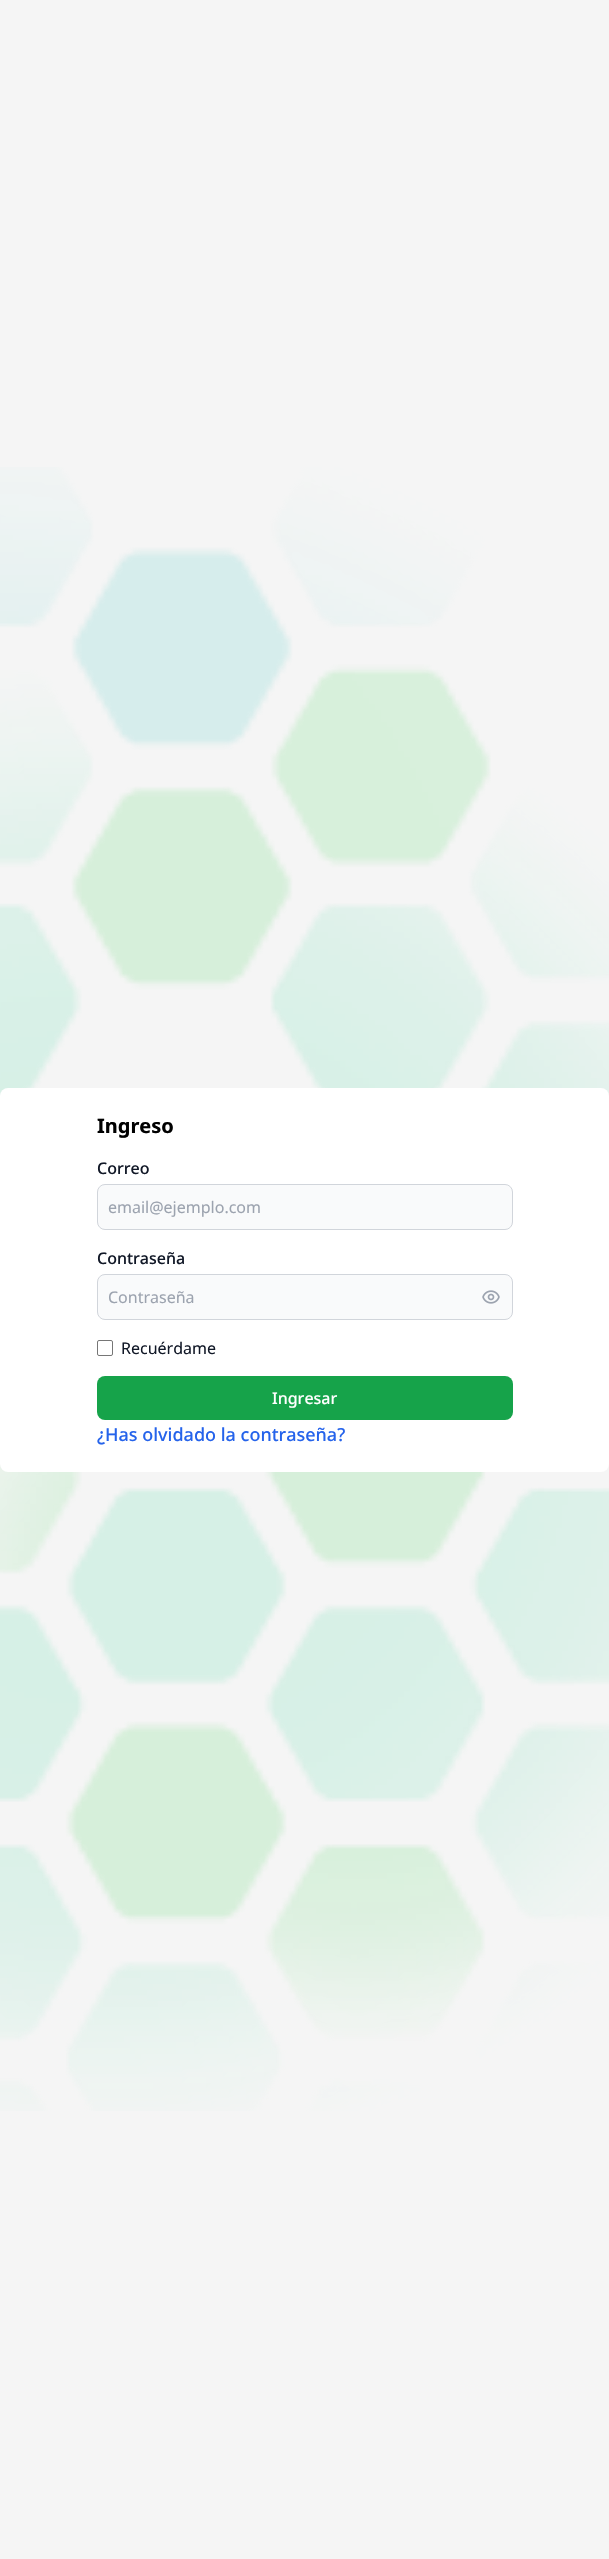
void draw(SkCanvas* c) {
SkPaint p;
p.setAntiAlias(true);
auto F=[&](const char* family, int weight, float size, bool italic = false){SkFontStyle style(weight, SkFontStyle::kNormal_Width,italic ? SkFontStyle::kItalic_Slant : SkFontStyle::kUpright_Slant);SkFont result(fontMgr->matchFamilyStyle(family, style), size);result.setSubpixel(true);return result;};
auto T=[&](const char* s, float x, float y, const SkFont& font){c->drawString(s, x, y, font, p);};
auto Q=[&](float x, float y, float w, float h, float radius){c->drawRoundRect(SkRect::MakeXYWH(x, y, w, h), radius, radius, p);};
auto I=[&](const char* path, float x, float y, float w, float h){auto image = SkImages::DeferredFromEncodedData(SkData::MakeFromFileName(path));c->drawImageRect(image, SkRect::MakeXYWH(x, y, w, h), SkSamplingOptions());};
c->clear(0xfff5f5f5);
I("1.png",0,467,609,1644);
p.setColor(0xffffffff);
Q(0,1088,609,384,8);
auto f1 = F("Noto Sans",700,20);
p.setColor(0xff000000);
T("Ingreso",97,1133,f1);
auto f2 = F("Noto Sans",500,16);
p.setColor(0xff111827);
T("Correo",97,1174,f2);
p.setColor(0xfff9fafb);
c->drawRoundRect(SkRect::MakeXYWH(97.5,1184.5,415,45),7.5,7.5,p);
p.setStroke(true);
p.setStrokeWidth(1);
p.setColor(0xffd1d5db);
c->drawRoundRect(SkRect::MakeXYWH(97.5,1184.5,415,45),7.5,7.5,p);
auto f3 = F("Noto Sans",400,16);
p.setStroke(false);
p.setColor(0xff9ca3af);
T("email@ejemplo.com",108,1213,f3);
p.setColor(0xff111827);
T("Contraseña",97,1264,f2);
p.setColor(0xfff9fafb);
c->drawRoundRect(SkRect::MakeXYWH(97.5,1274.5,415,45),7.5,7.5,p);
p.setStroke(true);
p.setColor(0xffd1d5db);
c->drawRoundRect(SkRect::MakeXYWH(97.5,1274.5,415,45),7.5,7.5,p);
p.setStroke(false);
p.setColor(0xff9ca3af);
T("Contraseña",108,1303,f3);
I("2.png",482,1290,18,14);
p.setStroke(true);
p.setColor(0xff767676);
c->drawRoundRect(SkRect::MakeXYWH(97.5,1340.5,15,15),1.5,1.5,p);
p.setStroke(false);
p.setColor(0xff111827);
T("Recuérdame",121,1354,f3);
p.setColor(0xff16a34a);
Q(97,1376,416,44,8);
p.setColor(0xffffffff);
T("Ingresar",272,1404,f2);
auto f4 = F("Noto Sans",500,18);
p.setColor(0xff2563eb);
T("¿Has olvidado la contraseña?",97,1441,f4);
}
